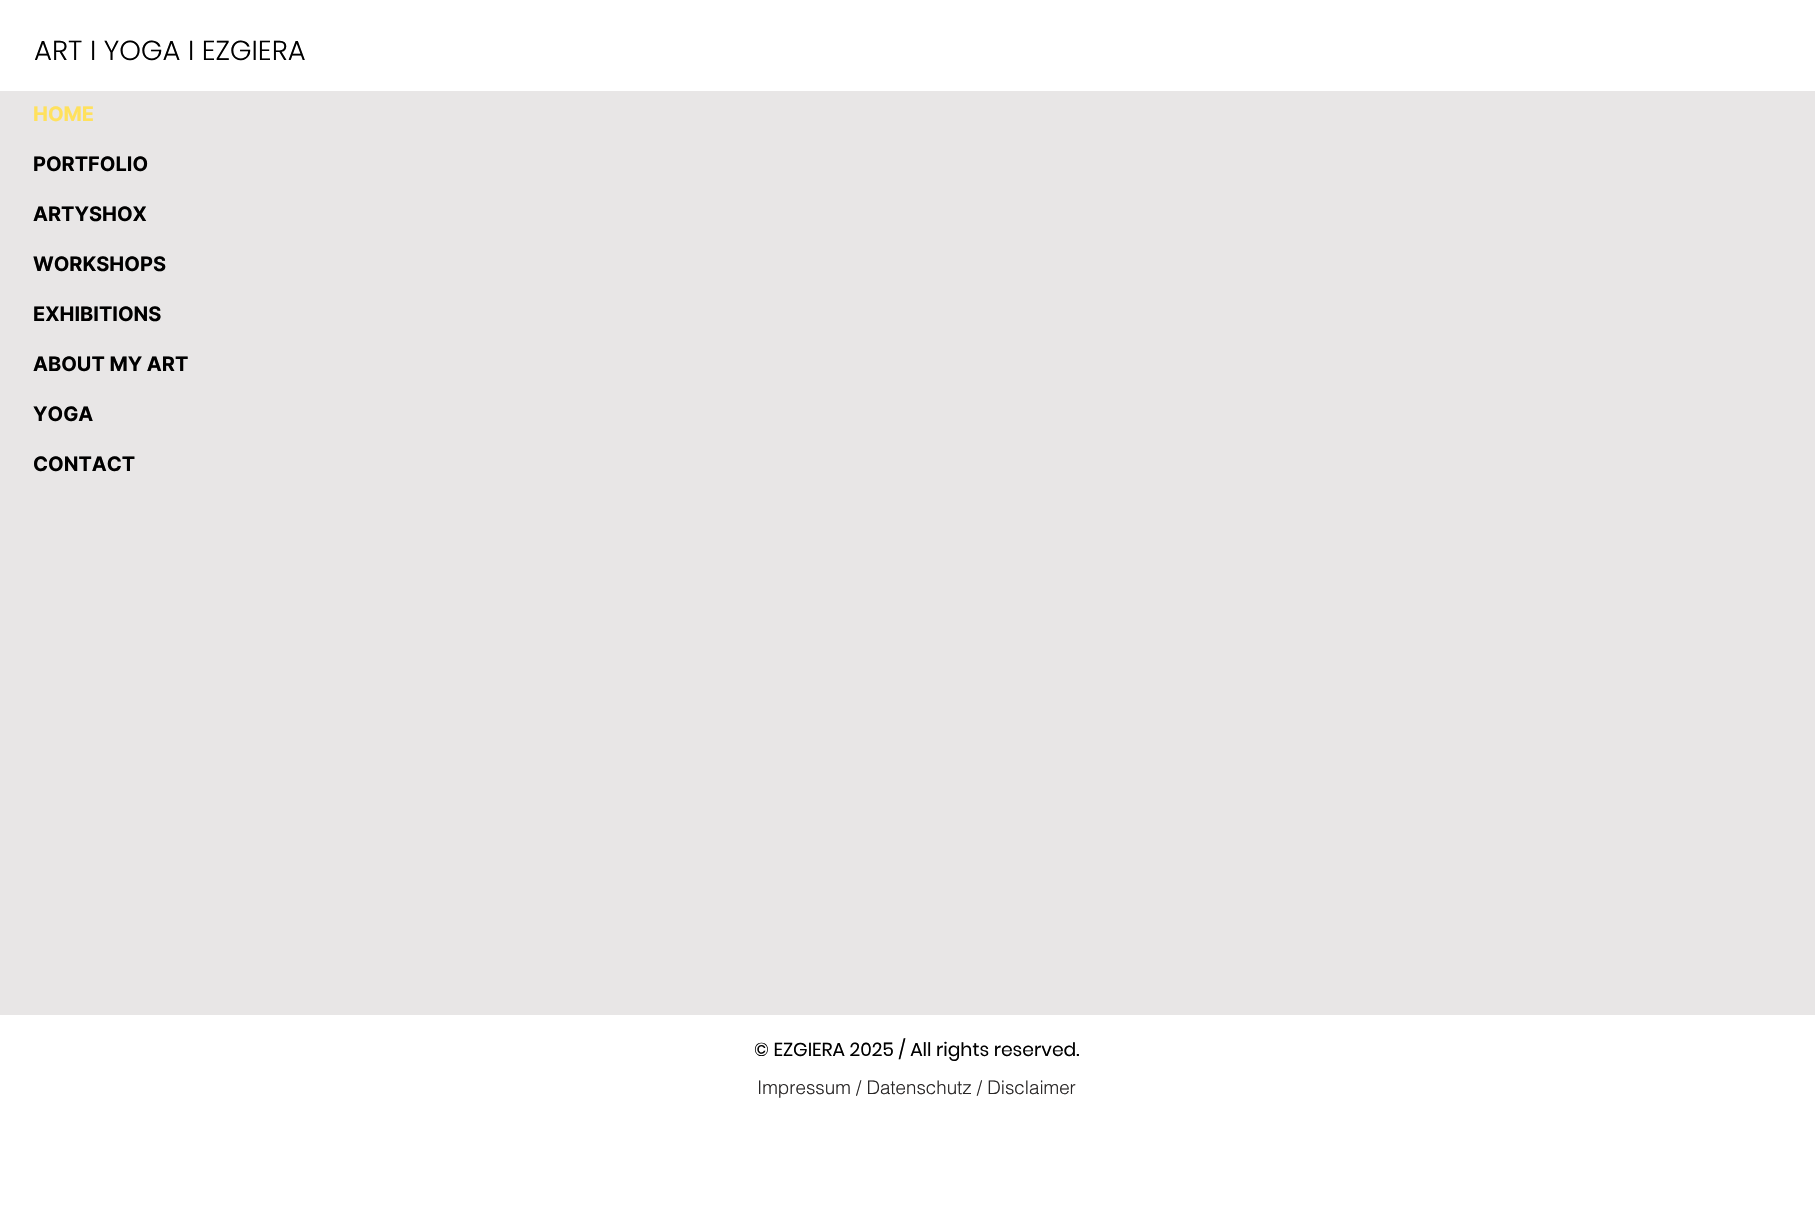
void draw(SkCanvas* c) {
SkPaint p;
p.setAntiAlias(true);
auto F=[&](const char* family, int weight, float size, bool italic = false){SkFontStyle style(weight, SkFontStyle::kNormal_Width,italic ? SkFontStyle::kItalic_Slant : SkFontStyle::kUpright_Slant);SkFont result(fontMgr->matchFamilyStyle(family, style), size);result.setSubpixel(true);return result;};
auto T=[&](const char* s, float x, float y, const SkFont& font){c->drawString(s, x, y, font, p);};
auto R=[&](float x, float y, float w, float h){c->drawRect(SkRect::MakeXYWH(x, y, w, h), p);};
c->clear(0xffffffff);
auto f1 = F("Poppins",300,27.5);
p.setColor(0xff000000);
T("ART I YOGA I EZGIERA",34,60,f1);
p.setColor(0xffe8e6e6);
R(0,91,1815,924);
auto f2 = F("Inter",700,20);
p.setColor(0xffffe15d);
T("HOME",33,121,f2);
p.setColor(0xff000000);
T("PORTFOLIO",33,171,f2);
T("ARTYSHOX",33,221,f2);
T("WORKSHOPS",33,271,f2);
T("EXHIBITIONS",33,321,f2);
T("ABOUT MY ART",33,371,f2);
T("YOGA",33,421,f2);
T("CONTACT",33,471,f2);
auto f3 = F("Poppins",400,18.75);
T("© EZGIERA 2025 / All rights reserved.",754,1056,f3);
auto f4 = F("helvetica",300,18.75);
p.setColor(0xff282626);
T("Impressum / Datenschutz / Disclaimer",757,1094,f4);
}
